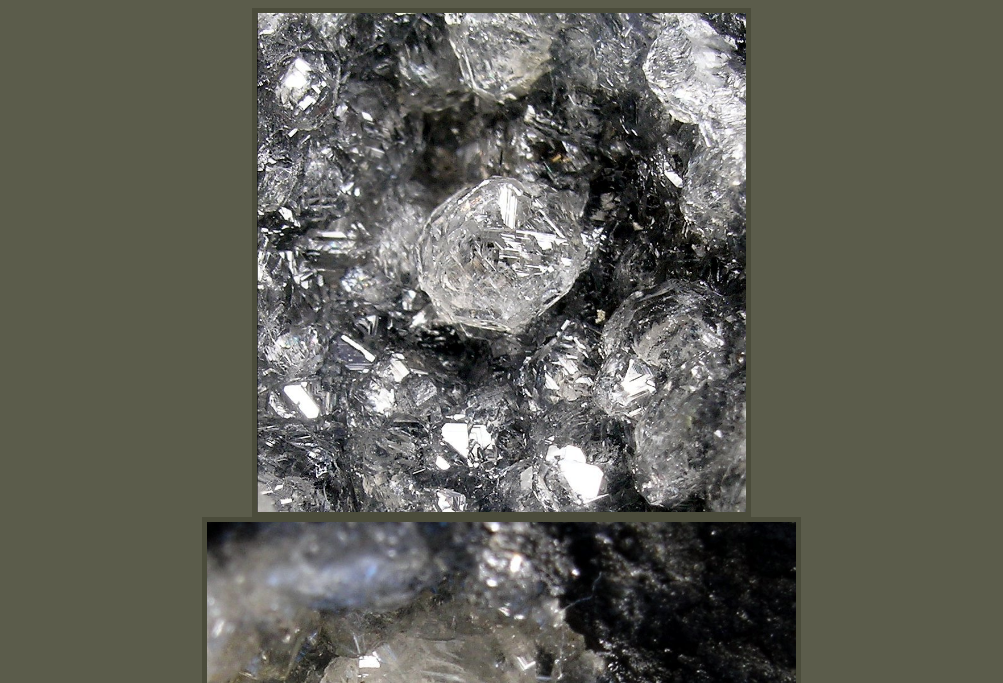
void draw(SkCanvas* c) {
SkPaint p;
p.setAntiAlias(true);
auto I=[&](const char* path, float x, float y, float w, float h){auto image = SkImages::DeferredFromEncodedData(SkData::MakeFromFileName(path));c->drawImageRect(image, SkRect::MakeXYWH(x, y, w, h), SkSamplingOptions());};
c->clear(0xff5b5c4b);
p.setStroke(true);
p.setStrokeWidth(5);
p.setColor(0xff4b4c3b);
c->drawRect(SkRect::MakeXYWH(254.5,10.5,494,504),p);
I("1.png",257,13,489,499);
c->drawRect(SkRect::MakeXYWH(204.5,519.5,594,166),p);
I("2.png",207,522,589,161);
}
